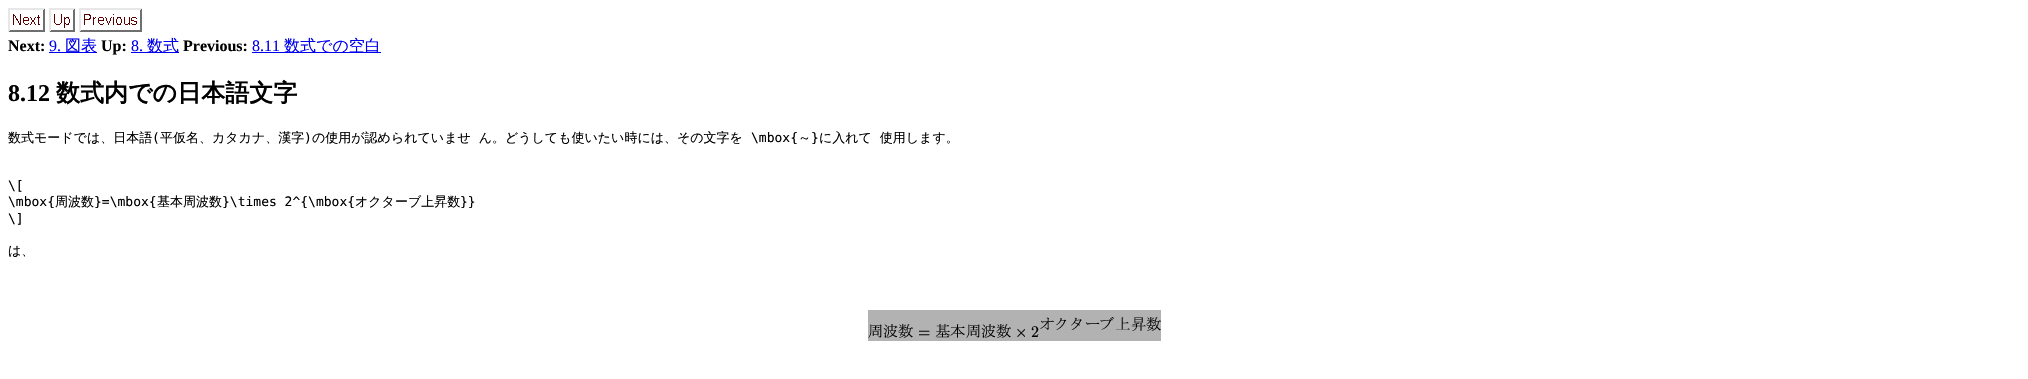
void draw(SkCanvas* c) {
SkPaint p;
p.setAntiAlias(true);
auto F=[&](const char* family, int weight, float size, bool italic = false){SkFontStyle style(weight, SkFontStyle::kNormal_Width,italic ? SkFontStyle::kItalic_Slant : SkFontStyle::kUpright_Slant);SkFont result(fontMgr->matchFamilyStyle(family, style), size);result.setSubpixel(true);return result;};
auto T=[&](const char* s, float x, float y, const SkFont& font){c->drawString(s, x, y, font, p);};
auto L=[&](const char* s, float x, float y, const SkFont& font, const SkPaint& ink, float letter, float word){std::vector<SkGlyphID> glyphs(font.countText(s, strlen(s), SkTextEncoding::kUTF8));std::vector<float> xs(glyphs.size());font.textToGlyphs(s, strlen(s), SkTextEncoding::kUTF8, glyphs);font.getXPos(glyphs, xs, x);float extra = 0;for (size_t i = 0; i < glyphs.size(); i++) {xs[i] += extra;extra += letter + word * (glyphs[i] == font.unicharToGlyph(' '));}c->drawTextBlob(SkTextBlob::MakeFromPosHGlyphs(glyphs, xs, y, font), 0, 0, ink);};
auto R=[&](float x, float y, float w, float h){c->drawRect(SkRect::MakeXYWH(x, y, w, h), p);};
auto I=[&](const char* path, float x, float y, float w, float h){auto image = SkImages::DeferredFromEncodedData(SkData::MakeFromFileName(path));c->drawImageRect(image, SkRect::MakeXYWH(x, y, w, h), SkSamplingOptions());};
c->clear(0xffffffff);
I("1.png",8,8,37,24);
I("2.png",49,8,26,24);
I("3.png",79,8,63,24);
auto f1 = F("Liberation Serif",700,16);
p.setColor(0xff000000);
T("Next:",8,51,f1);
auto f2 = F("Liberation Serif",400,16);
p.setColor(0xff0000ee);
T("9.",49,51,f2);
R(49,52,48,1);
auto f3 = F("WenQuanYi Zen Hei",500,16);
T("図表",65,51,f3);
p.setColor(0xff000000);
T("Up:",101,51,f1);
p.setColor(0xff0000ee);
T("8.",131,51,f2);
R(131,52,48,1);
T("数式",147,51,f3);
p.setColor(0xff000000);
T("Previous:",183,51,f1);
p.setColor(0xff0000ee);
T("8.11",252,51,f2);
R(252,52,129,1);
T("数式での空白",284,51,f3);
auto f4 = F("Liberation Serif",700,24);
p.setColor(0xff000000);
T("8.12",8,101,f4);
auto f5 = F("WenQuanYi Zen Hei",700,24);
T("数式内での日本語文字",56,101,f5);
auto f6 = F("WenQuanYi Zen Hei",500,13);
T("数式モードでは、日本語",8,142,f6);
auto f7 = F("DejaVu Sans Mono",400,13);
T("(",152,142,f7);
T("平仮名、カタカナ、漢字",160,142,f6);
T(")",304,142,f7);
L("の使用が認められていませ ん。どうしても使いたい時には、その文字を",312,142,f6,p,0,4);
T("\\mbox{",751,142,f7);
T("～",798,142,f6);
T("}",811,142,f7);
L("に入れて 使用します。",819,142,f6,p,0,4);
T("\\[",8,190,f7);
T("\\mbox{",8,206,f7);
T("周波数",55,206,f6);
T("}=\\mbox{",94,206,f7);
T("基本周波数",157,206,f6);
T("}\\times 2^{\\mbox{",222,206,f7);
T("オクターブ上昇数",355,206,f6);
T("}}",460,206,f7);
T("\\]",8,223,f7);
T("は、",8,255,f6);
I("4.png",868,310,293,31);
}
